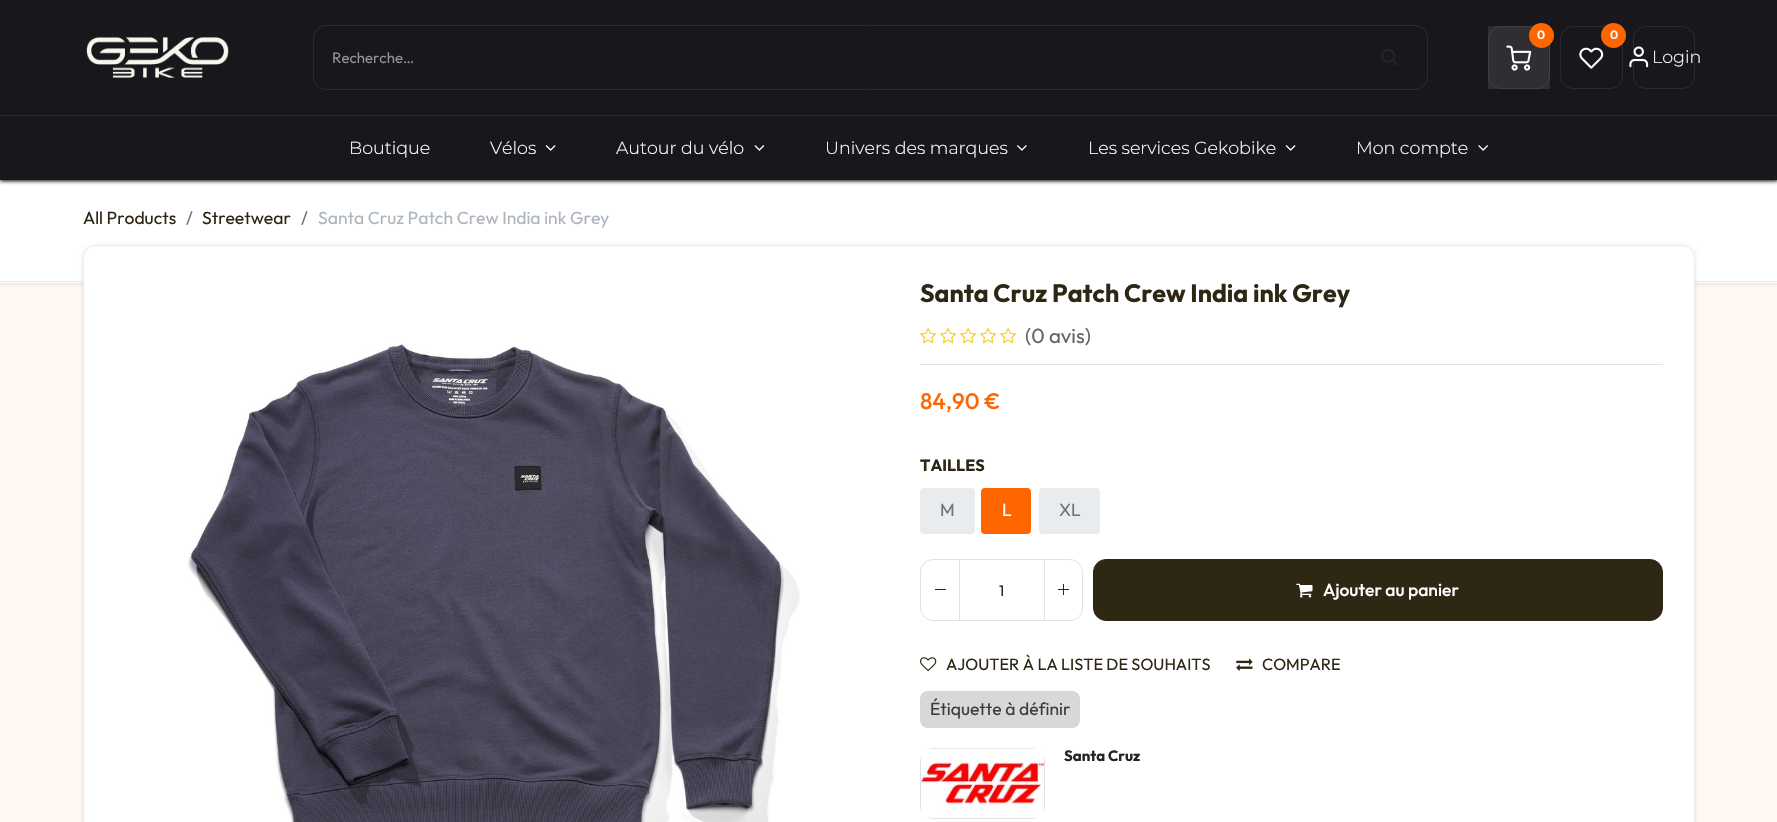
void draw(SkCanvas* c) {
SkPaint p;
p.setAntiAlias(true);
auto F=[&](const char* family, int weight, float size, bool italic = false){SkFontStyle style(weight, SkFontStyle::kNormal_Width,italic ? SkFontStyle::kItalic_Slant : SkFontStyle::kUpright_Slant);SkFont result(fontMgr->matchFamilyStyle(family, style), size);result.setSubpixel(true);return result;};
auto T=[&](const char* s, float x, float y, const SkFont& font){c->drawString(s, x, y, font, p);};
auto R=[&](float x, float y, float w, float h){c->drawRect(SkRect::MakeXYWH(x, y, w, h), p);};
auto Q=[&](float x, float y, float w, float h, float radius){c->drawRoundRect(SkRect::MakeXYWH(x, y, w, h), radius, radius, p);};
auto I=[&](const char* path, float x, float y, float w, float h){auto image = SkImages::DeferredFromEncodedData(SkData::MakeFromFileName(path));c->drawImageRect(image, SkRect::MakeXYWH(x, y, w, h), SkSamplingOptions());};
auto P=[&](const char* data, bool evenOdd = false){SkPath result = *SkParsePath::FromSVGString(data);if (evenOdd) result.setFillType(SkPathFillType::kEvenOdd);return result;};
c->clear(0xfffff8f3);
p.setColor(0x1a000000);
p.setMaskFilter(SkMaskFilter::MakeBlur(kNormal_SkBlurStyle, 2));
c->drawRect(SkRect::MakeXYWH(0,181,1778,103),p);
p.setMaskFilter(nullptr);
p.setColor(0xffffffff);
R(0,180,1777,103);
p.setColor(0xff000000);
p.setMaskFilter(SkMaskFilter::MakeBlur(kNormal_SkBlurStyle, 2));
c->drawRect(SkRect::MakeXYWH(0,1,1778,180),p);
p.setMaskFilter(nullptr);
p.setColor(0xff19171c);
R(0,0,1777,180);
I("1.png",86,37,143,41);
p.setStroke(true);
p.setStrokeWidth(1);
p.setColor(0xff2b2a2e);
c->drawRoundRect(SkRect::MakeXYWH(313.5,25.5,1114,64),12.5,12.5,p);
auto f1 = F("Outfit",400,15);
p.setStroke(false);
p.setColor(0xff909294);
T("Recherche…",332,63,f1);
I("2.png",1381,49,18,17);
p.setColor(0xff302e33);
R(1488,26,62,63);
p.setStroke(true);
p.setColor(0xff403f43);
c->drawRoundRect(SkRect::MakeXYWH(1488.5,26.5,61,62),12.5,12.5,p);
I("3.png",1506,45,26,26);
p.setStroke(false);
p.setColor(0xffff6600);
c->drawCircle(1541.5,35.5,12.5,p);
auto f2 = F("Montserrat",600,12);
p.setColor(0xffffffff);
T("0",1537,39,f2);
p.setStroke(true);
p.setColor(0xff2b2a2e);
c->drawRoundRect(SkRect::MakeXYWH(1560.5,26.5,62,62),12.5,12.5,p);
I("4.png",1579,47,25,22);
p.setStroke(false);
p.setColor(0xffff6600);
c->drawCircle(1613.5,35.5,12.5,p);
p.setColor(0xffffffff);
T("0",1610,39,f2);
p.setStroke(true);
p.setColor(0xff2b2a2e);
c->drawRoundRect(SkRect::MakeXYWH(1633.5,26.5,61,62),12.5,12.5,p);
I("5.png",1629,46,20,22);
auto f3 = F("Montserrat",300,17.5);
p.setStroke(false);
p.setColor(0xffffffff);
T("Login",1652,63,f3);
p.setColor(0xff2b2a2e);
R(0,115,1777,1);
p.setColor(0xffffffff);
T("Boutique",349,154,f3);
T("Vélos",490,154,f3);
I("6.png",545,145,11,6);
T("Autour du vélo",616,154,f3);
I("7.png",754,145,11,6);
T("Univers des marques",825,154,f3);
I("8.png",1017,145,10,6);
T("Les services Gekobike",1088,154,f3);
I("6.png",1285,145,11,6);
T("Mon compte",1356,154,f3);
I("9.png",1478,145,10,6);
p.setColor(0xffe9ecef);
R(0,281,1777,1);
auto f4 = F("Outfit",400,17.5);
p.setColor(0xff2e2714);
T("All Products",83,224,f4);
p.setColor(0xff6c757d);
T("/",186,224,f4);
p.setColor(0xff2e2714);
T("Streetwear",202,224,f4);
p.setColor(0xff6c757d);
T("/",301,224,f4);
p.setColor(0xffadb5bd);
T("Santa Cruz Patch Crew India ink Grey",318,224,f4);
p.setColor(0x1a000000);
p.setMaskFilter(SkMaskFilter::MakeBlur(kNormal_SkBlurStyle, 2));
c->drawRoundRect(SkRect::MakeXYWH(83,246,1612,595),13,13,p);
p.setMaskFilter(nullptr);
p.setColor(0xffffffff);
c->drawPath(P("M96 245h1586c7 0 13 6 13 13v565h-1612v-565c0-7 6-13 13-13z"),p);
p.setStroke(true);
p.setColor(0xffe9ecef);
c->drawRoundRect(SkRect::MakeXYWH(83.5,245.5,1611,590),12.5,12.5,p);
I("10.png",187,341,613,481);
auto f5 = F("Outfit",700,25);
p.setStroke(false);
p.setColor(0xff2e2714);
T("Santa Cruz Patch Crew India ink Grey",920,302,f5);
p.setColor(0xffdee2e6);
R(920,364,743,1);
I("11.png",920,327,17,17);
I("11.png",940,327,17,17);
I("11.png",960,327,17,17);
I("11.png",980,327,17,17);
I("11.png",1000,327,17,17);
auto f6 = F("Outfit",400,20.5);
p.setColor(0xff646669);
T("(0 avis)",1025,343,f6);
auto f7 = F("Outfit",500,22.5);
p.setColor(0xffff6600);
T("84,90 €",920,409,f7);
auto f8 = F("Outfit",700,16.25);
p.setColor(0xff2e2714);
T("TAILLES",920,471,f8);
p.setColor(0xffe9ecef);
Q(920,488,55,46,4);
p.setColor(0xff6c757d);
T("M",940,516,f4);
p.setColor(0xffff6600);
Q(981,488,50,46,4);
p.setColor(0xffffffff);
T("L",1002,516,f4);
p.setColor(0xffe9ecef);
Q(1039,488,61,46,4);
p.setColor(0xff6c757d);
T("XL",1059,516,f4);
p.setStroke(true);
p.setColor(0xffdee2e6);
c->drawRoundRect(SkRect::MakeXYWH(920.5,559.5,162,61),12.5,12.5,p);
p.setStroke(false);
p.setColor(0xff2e2714);
R(935,589,11,1);
p.setColor(0xffdee2e6);
R(1044,560,1,60);
R(959,560,1,60);
p.setColor(0xff212529);
T("1",999,596,f1);
p.setColor(0xff2e2714);
R(1058,589,11,1);
R(1063,584,1,11);
c->drawRoundRect(SkRect::MakeXYWH(1093.5,559.5,569,61),12.5,12.5,p);
p.setStroke(true);
c->drawRoundRect(SkRect::MakeXYWH(1093.5,559.5,569,61),12.5,12.5,p);
I("12.png",1296,583,17,15);
auto f9 = F("Outfit",500,17.5);
p.setStroke(false);
p.setColor(0xffffffff);
T("Ajouter au panier",1323,596,f9);
I("13.png",920,657,17,15);
auto f10 = F("Outfit",400,16.25);
p.setColor(0xff2e2714);
T("AJOUTER À LA LISTE DE SOUHAITS",946,670,f10);
I("14.png",1236,658,17,13);
T("COMPARE",1262,670,f10);
p.setColor(0xff3c3c3c);
T("Étiquette à définir",930,715,f4);
p.setColor(0x333c3c3c);
Q(920,691,160,37,8);
p.setStroke(true);
p.setColor(0xffdee2e6);
c->drawRoundRect(SkRect::MakeXYWH(920.5,748.5,124,70),12.5,12.5,p);
I("15.png",921,748,123,70);
auto f11 = F("Outfit",700,15);
p.setStroke(false);
p.setColor(0xff212529);
T("Santa Cruz",1064,761,f11);
}
